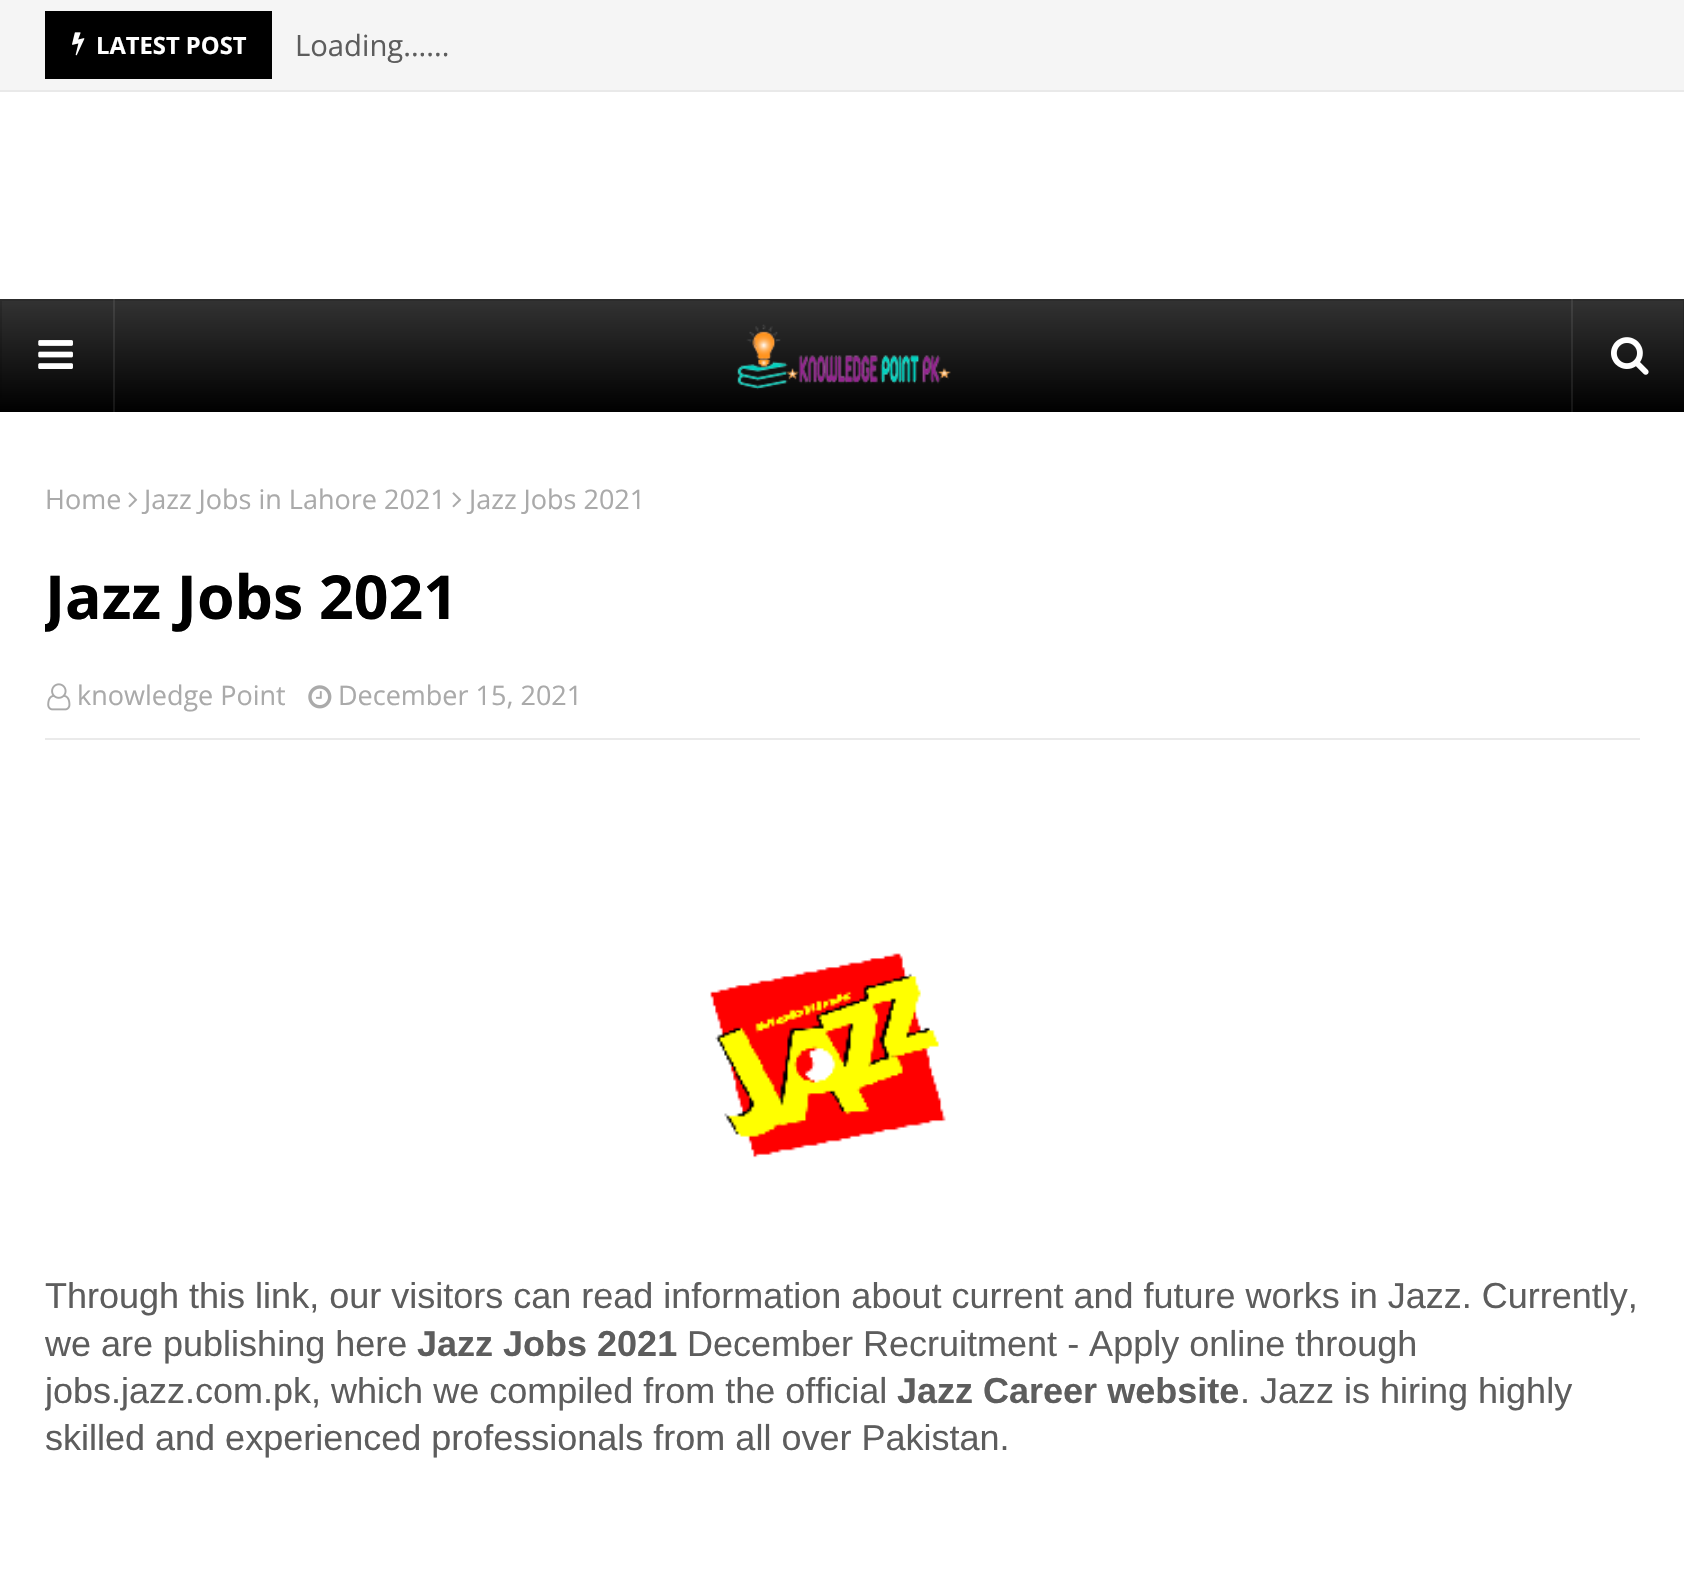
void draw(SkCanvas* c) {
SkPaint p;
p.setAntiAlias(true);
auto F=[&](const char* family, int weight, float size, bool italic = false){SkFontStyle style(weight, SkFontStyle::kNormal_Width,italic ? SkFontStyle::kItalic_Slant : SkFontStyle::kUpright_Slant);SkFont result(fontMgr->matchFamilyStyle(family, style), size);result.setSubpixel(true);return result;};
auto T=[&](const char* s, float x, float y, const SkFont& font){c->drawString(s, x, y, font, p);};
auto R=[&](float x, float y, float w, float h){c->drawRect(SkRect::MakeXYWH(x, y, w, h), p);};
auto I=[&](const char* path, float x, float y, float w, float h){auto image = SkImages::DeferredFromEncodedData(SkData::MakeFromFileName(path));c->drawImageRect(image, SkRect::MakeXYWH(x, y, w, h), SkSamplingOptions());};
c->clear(0xffffffff);
p.setColor(0xfff5f5f5);
R(0,0,1684,90);
p.setColor(0xffe9e9e9);
R(0,90,1684,2);
p.setColor(0xff000000);
R(45,11,227,68);
I("1.png",72,32,13,24);
auto f1 = F("Open Sans",700,23.75);
p.setColor(0xffffffff);
T("LATEST POST",96,54,f1);
auto f2 = F("Open Sans",400,29.25);
p.setColor(0xff5d5d5d);
T("Loading......",295,56,f2);
{
const SkColor colors[] = {0xff333333,0xff000000};
const float stops[] = {0,1};
const SkPoint ends[] = {{843,299}, {843,412}};
p.setShader(SkGradientShader::MakeLinear(ends, colors, stops, 2, SkTileMode::kClamp));
p.setAlpha(255);
}
R(0,299,1684,113);
p.setStroke(true);
p.setStrokeWidth(2);
p.setShader(nullptr);
p.setColor(0x26000000);
c->drawRect(SkRect::MakeXYWH(1,300,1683,111),p);
p.setStroke(false);
p.setColor(0x14ffffff);
R(113,299,2,113);
I("2.png",38,340,35,29);
I("3.png",737,324,214,66);
R(1571,299,2,113);
I("4.png",1611,337,38,38);
auto f3 = F("Open Sans",400,27);
p.setColor(0xffaaaaaa);
T("Home",45,509,f3);
I("5.png",128,492,10,16);
T("Jazz Jobs in Lahore 2021",144,509,f3);
I("5.png",452,492,10,16);
T("Jazz Jobs 2021",469,509,f3);
c->save();
c->clipRect(SkRect::MakeXYWH(45,479,1595,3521));
auto f4 = F("Open Sans",700,60.75);
p.setColor(0xff000000);
T("Jazz Jobs 2021",45,619,f4);
c->restore();
p.setColor(0xffeaeaea);
R(45,738,1595,2);
I("6.png",47,683,24,28);
p.setColor(0xffaaaaaa);
T("knowledge Point",77,705,f3);
I("7.png",308,685,24,24);
T("December 15, 2021",338,705,f3);
I("8.png",710,953,236,205);
auto f5 = F("Liberation Sans",400,36);
p.setColor(0xff5d5d5d);
T("Through this link, our visitors can read information about current and future works in Jazz. Currently,",45,1308,f5);
T("we are publishing here",45,1356,f5);
auto f6 = F("Liberation Sans",700,36);
T("Jazz Jobs 2021",417,1356,f6);
T("December Recruitment - Apply online through",687,1356,f5);
c->save();
c->clipRect(SkRect::MakeXYWH(45,740,1595,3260));
T("jobs.jazz.com.pk, which we compiled from the official",45,1403,f5);
c->restore();
T("Jazz Career website",897,1403,f6);
T(". Jazz is hiring highly",1240,1403,f5);
T("skilled and experienced professionals from all over Pakistan.",45,1450,f5);
}
